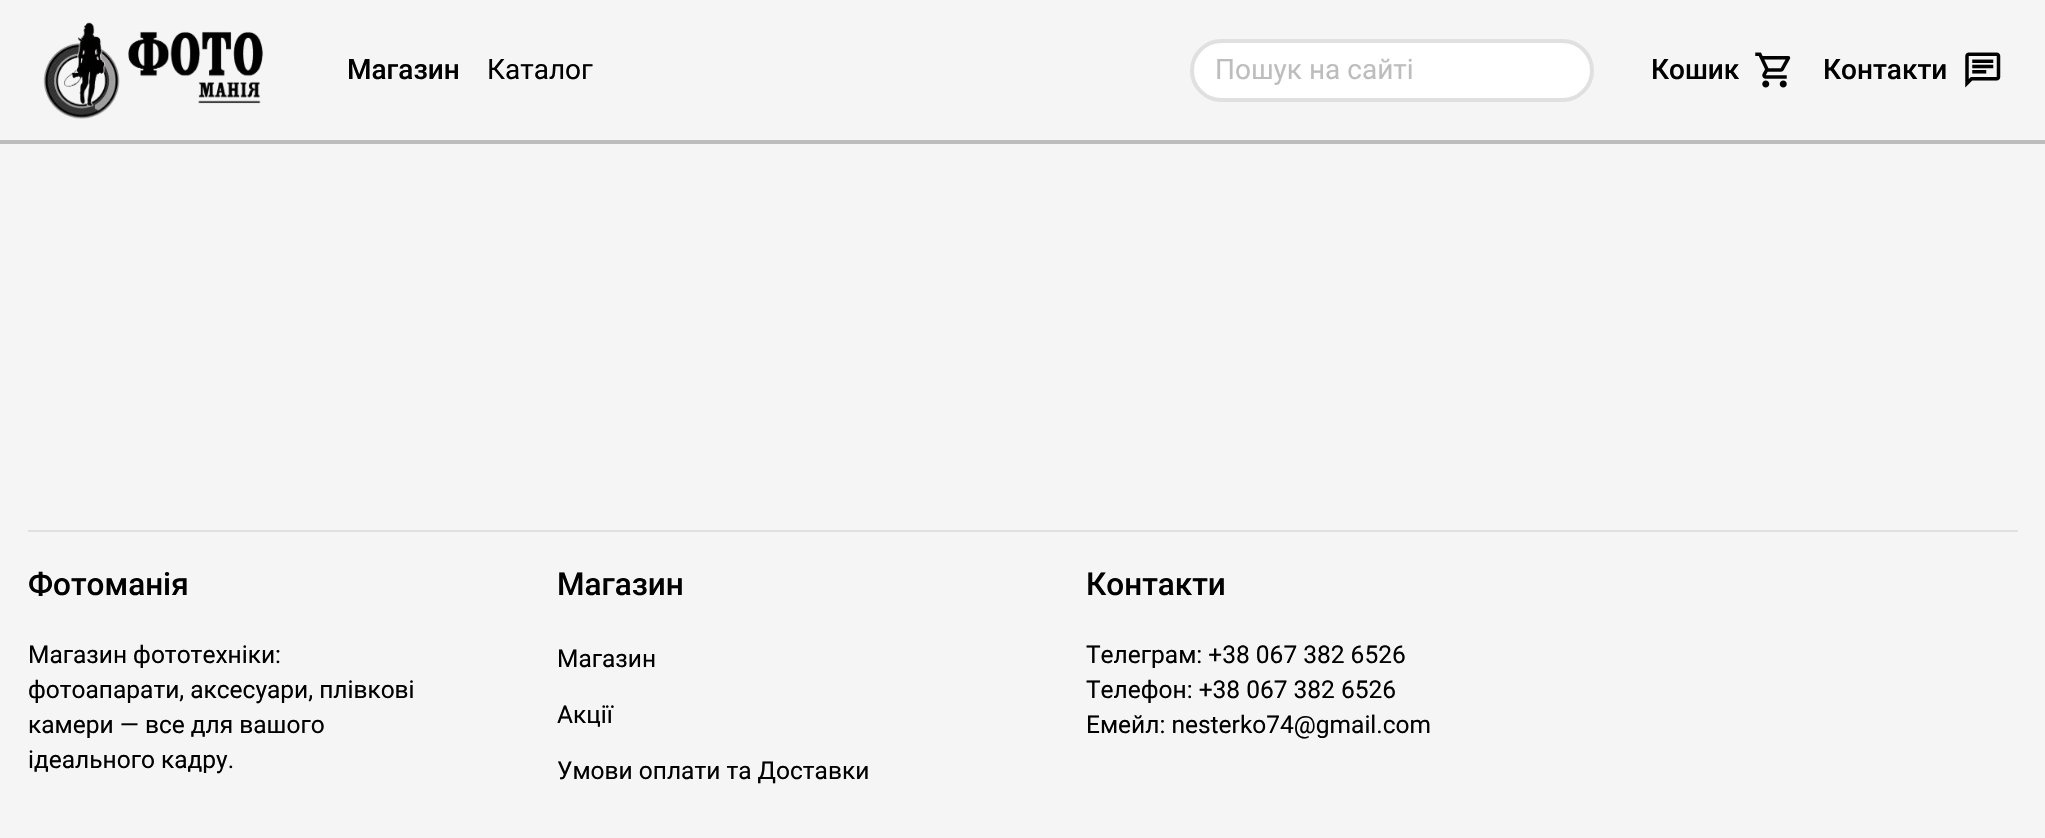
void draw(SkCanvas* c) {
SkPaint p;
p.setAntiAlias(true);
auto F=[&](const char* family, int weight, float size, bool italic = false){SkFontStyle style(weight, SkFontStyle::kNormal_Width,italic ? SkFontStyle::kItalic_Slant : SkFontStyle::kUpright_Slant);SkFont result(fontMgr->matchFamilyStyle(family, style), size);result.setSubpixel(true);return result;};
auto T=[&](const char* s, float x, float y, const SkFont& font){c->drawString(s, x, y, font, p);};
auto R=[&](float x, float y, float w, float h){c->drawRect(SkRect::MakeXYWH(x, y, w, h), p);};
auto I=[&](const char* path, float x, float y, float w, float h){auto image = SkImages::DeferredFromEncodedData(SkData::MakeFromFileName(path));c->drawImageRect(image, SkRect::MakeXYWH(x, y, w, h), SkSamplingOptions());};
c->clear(0xfff5f5f5);
p.setColor(0xffbdbdbd);
R(0,140,2045,4);
I("1.png",43,22,221,97);
auto f1 = F("Roboto",500,28);
p.setColor(0xff000000);
T("Магазин",347,79,f1);
auto f2 = F("Roboto",400,28);
T("Каталог",487,79,f2);
p.setColor(0xffffffff);
c->drawRoundRect(SkRect::MakeXYWH(1192,41,400,59),29.5,29.5,p);
p.setStroke(true);
p.setStrokeWidth(4);
p.setColor(0xffe0e0e0);
c->drawRoundRect(SkRect::MakeXYWH(1192,41,400,59),29.5,29.5,p);
p.setStroke(false);
p.setColor(0xffbdbdbd);
T("Пошук на сайті",1215,79,f2);
p.setColor(0xff000000);
T("Кошик",1651,79,f1);
I("2.png",1755,52,36,36);
T("Контакти",1823,79,f1);
I("3.png",1965,52,36,36);
p.setColor(0xffe0e0e0);
R(28,530,1990,2);
auto f3 = F("Roboto",500,31.5);
p.setColor(0xff000000);
T("Фотоманія",28,595,f3);
auto f4 = F("Roboto",400,24.5);
T("Магазин фототехніки:",28,663,f4);
T("фотоапарати, аксесуари, плівкові",28,698,f4);
T("камери — все для вашого",28,733,f4);
T("ідеального кадру.",28,768,f4);
T("Магазин",557,595,f3);
T("Магазин",557,667,f4);
T("Акції",557,723,f4);
T("Умови оплати та Доставки",557,779,f4);
T("Контакти",1086,595,f3);
T("Телеграм: +38 067 382 6526",1086,663,f4);
T("Телефон: +38 067 382 6526",1086,698,f4);
T("Емейл: nesterko74@gmail.com",1086,733,f4);
}
